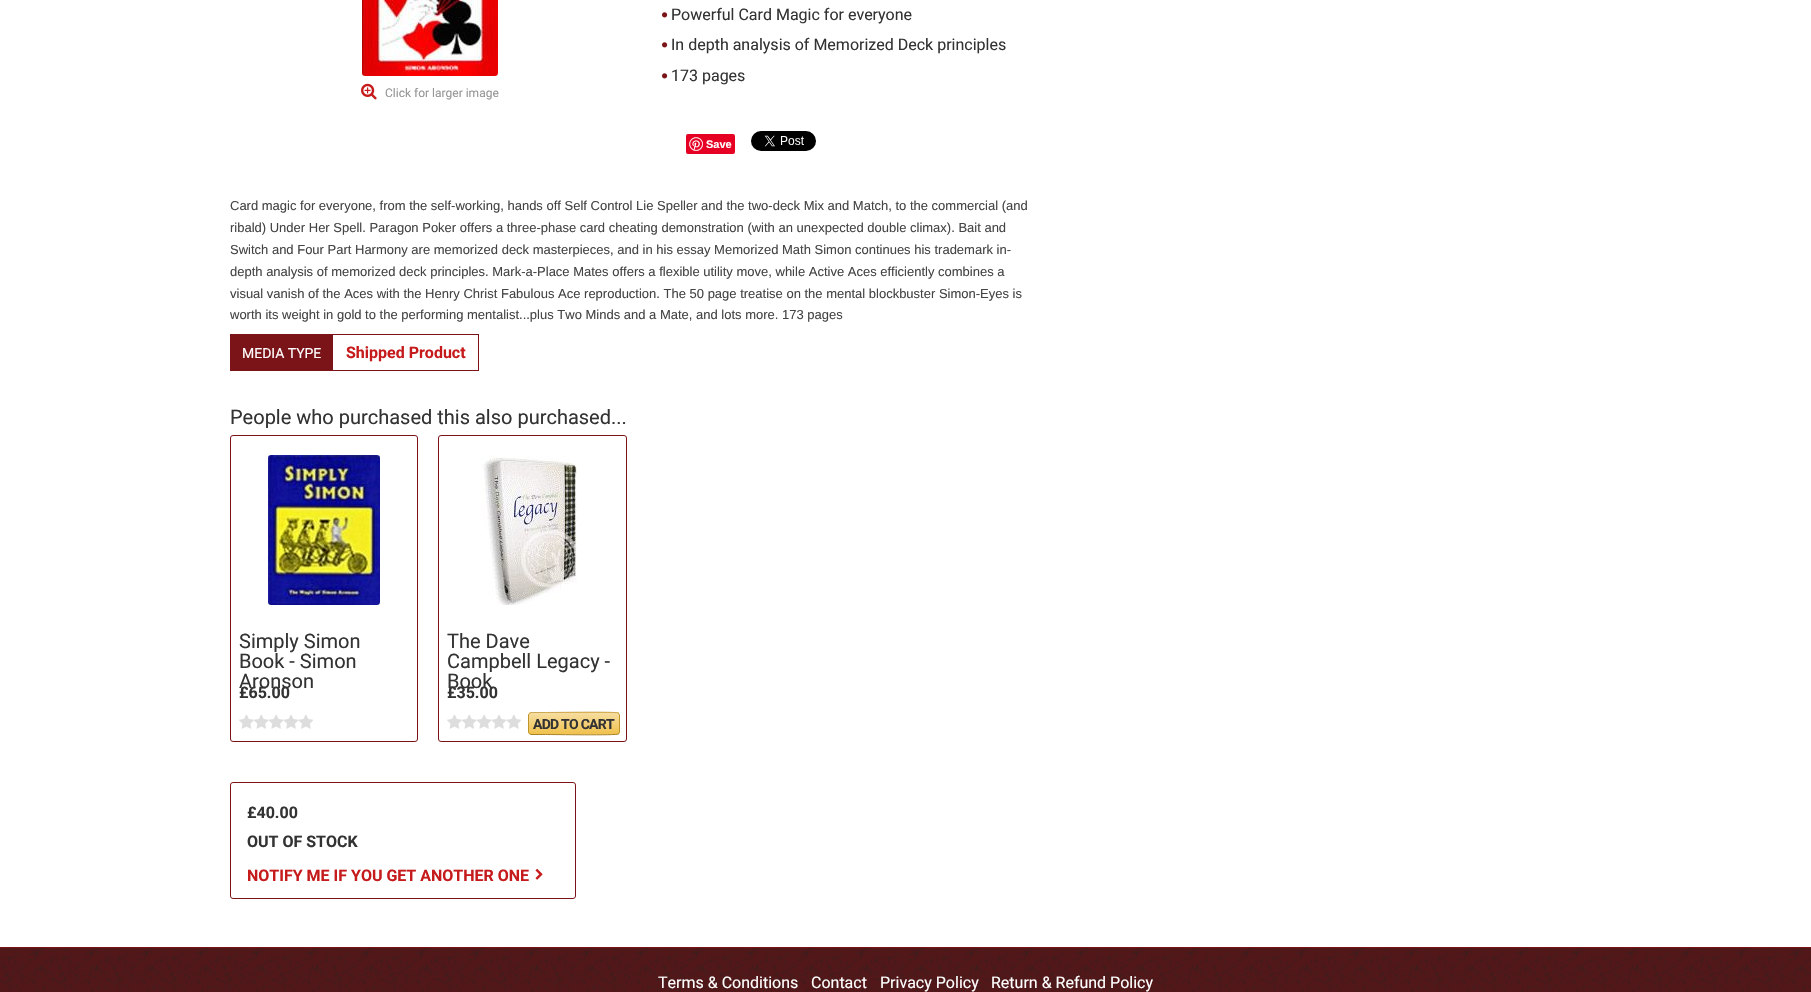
void draw(SkCanvas* c) {
SkPaint p;
p.setAntiAlias(true);
auto F=[&](const char* family, int weight, float size, bool italic = false){SkFontStyle style(weight, SkFontStyle::kNormal_Width,italic ? SkFontStyle::kItalic_Slant : SkFontStyle::kUpright_Slant);SkFont result(fontMgr->matchFamilyStyle(family, style), size);result.setSubpixel(true);return result;};
auto T=[&](const char* s, float x, float y, const SkFont& font){c->drawString(s, x, y, font, p);};
auto L=[&](const char* s, float x, float y, const SkFont& font, const SkPaint& ink, float letter, float word){std::vector<SkGlyphID> glyphs(font.countText(s, strlen(s), SkTextEncoding::kUTF8));std::vector<float> xs(glyphs.size());font.textToGlyphs(s, strlen(s), SkTextEncoding::kUTF8, glyphs);font.getXPos(glyphs, xs, x);float extra = 0;for (size_t i = 0; i < glyphs.size(); i++) {xs[i] += extra;extra += letter + word * (glyphs[i] == font.unicharToGlyph(' '));}c->drawTextBlob(SkTextBlob::MakeFromPosHGlyphs(glyphs, xs, y, font), 0, 0, ink);};
auto R=[&](float x, float y, float w, float h){c->drawRect(SkRect::MakeXYWH(x, y, w, h), p);};
auto Q=[&](float x, float y, float w, float h, float radius){c->drawRoundRect(SkRect::MakeXYWH(x, y, w, h), radius, radius, p);};
auto I=[&](const char* path, float x, float y, float w, float h){auto image = SkImages::DeferredFromEncodedData(SkData::MakeFromFileName(path));c->drawImageRect(image, SkRect::MakeXYWH(x, y, w, h), SkSamplingOptions());};
auto P=[&](const char* data, bool evenOdd = false){SkPath result = *SkParsePath::FromSVGString(data);if (evenOdd) result.setFillType(SkPathFillType::kEvenOdd);return result;};
c->clear(0xffffffff);
I("1.png",362,0,136,76);
I("2.png",361,83,16,17);
auto f1 = F("Roboto",400,12);
p.setColor(0xff969696);
T("Click for larger image",385,97,f1);
I("3.png",662,12,6,6);
auto f2 = F("Roboto",400,16);
p.setColor(0xff333333);
T("Powerful Card Magic for everyone",671,20,f2);
I("3.png",662,42,6,6);
T("In depth analysis of Memorized Deck principles",671,50,f2);
I("3.png",662,73,6,6);
T("173 pages",671,81,f2);
p.setColor(0xffe60023);
Q(686,134,49,20,2);
I("4.png",689,137,14,14);
auto f3 = F("Liberation Sans",700,11);
p.setColor(0xffffffff);
T("Save",706,148,f3);
I("5.png",751,131,65,20);
auto f4 = F("Liberation Sans",400,13);
p.setColor(0xff444444);
T("Card magic for everyone, from the self-working, hands off Self Control Lie Speller and the two-deck Mix and Match, to the commercial (and",230,210,f4);
T("ribald) Under Her Spell. Paragon Poker offers a three-phase card cheating demonstration (with an unexpected double climax). Bait and",230,232,f4);
T("Switch and Four Part Harmony are memorized deck masterpieces, and in his essay Memorized Math Simon continues his trademark in-",230,254,f4);
T("depth analysis of memorized deck principles. Mark-a-Place Mates offers a flexible utility move, while Active Aces efficiently combines a",230,276,f4);
T("visual vanish of the Aces with the Henry Christ Fabulous Ace reproduction. The 50 page treatise on the mental blockbuster Simon-Eyes is",230,298,f4);
T("worth its weight in gold to the performing mentalist...plus Two Minds and a Mate, and lots more. 173 pages",230,319,f4);
p.setColor(0xff7b1418);
R(230,335,103,36);
auto f5 = F("Roboto",400,14);
p.setColor(0xffffffff);
T("MEDIA TYPE",242,358,f5);
p.setColor(0xff7b1418);
R(230,334,249,1);
R(478,334,1,37);
R(332,370,147,1);
auto f6 = F("Roboto",700,16);
p.setColor(0xffc61b1c);
T("Shipped Product",346,358,f6);
auto f7 = F("Roboto",400,20);
p.setColor(0xff333333);
T("People who purchased this also purchased...",230,424,f7);
p.setStroke(true);
p.setStrokeWidth(1);
p.setColor(0xff7b1418);
c->drawRoundRect(SkRect::MakeXYWH(230.5,435.5,187,306),2.5,2.5,p);
I("6.png",268,455,112,150);
p.setStroke(false);
p.setColor(0xff333333);
T("Simply Simon",239,648,f7);
T("Book - Simon",239,668,f7);
T("Aronson",239,688,f7);
T("£65.00",239,698,f6);
I("7.png",239,714,74,15);
p.setStroke(true);
p.setColor(0xff7b1418);
c->drawRoundRect(SkRect::MakeXYWH(438.5,435.5,188,306),2.5,2.5,p);
I("8.png",481,455,96,150);
p.setStroke(false);
p.setColor(0xff333333);
T("The Dave",447,648,f7);
T("Campbell Legacy -",447,668,f7);
T("Book",447,688,f7);
T("£35.00",447,698,f6);
I("7.png",447,714,74,15);
c->save();
c->clipPath(P("M531 712h86c1.5 0 3 1.5 3 3v17c0 1.5-1.5 3-3 3h-86c-1.5 0-3-1.5-3-3v-17c0-1.5 1.5-3 3-3z"),true);
{
const SkColor colors[] = {0xfff6dda0,0xfff0c14d};
const float stops[] = {0,1};
const SkPoint ends[] = {{574,692}, {574,713}};
p.setShader(SkGradientShader::MakeLinear(ends, colors, stops, 2, SkTileMode::kClamp));
p.setAlpha(255);
}
R(528,712,92,1);
{
const SkColor colors[] = {0xfff6dda0,0xfff0c14d};
const float stops[] = {0,1};
const SkPoint ends[] = {{574,713}, {574,734}};
p.setShader(SkGradientShader::MakeLinear(ends, colors, stops, 2, SkTileMode::kClamp));
p.setAlpha(255);
}
R(528,713,92,21);
{
const SkColor colors[] = {0xfff6dda0,0xfff0c14d};
const float stops[] = {0,1};
const SkPoint ends[] = {{574,734}, {574,755}};
p.setShader(SkGradientShader::MakeLinear(ends, colors, stops, 2, SkTileMode::kClamp));
p.setAlpha(255);
}
R(528,734,92,1);
c->restore();
p.setStroke(true);
p.setShader(nullptr);
p.setColor(0xffcba957);
c->drawPath(P("M529.5 713.5l1.5-1h14.5c8 0 71-1 73 .5v.5"),p);
p.setColor(0xffbf942a);
c->drawPath(P("M618.5 713.5c.5 .5 1 1 1 1.5v17c0 .5-.5 1-1 1.5"),p);
p.setColor(0xffaa8326);
c->drawPath(P("M618.5 733.5v.5c-2 1.5-65 .5-73 .5h-14.5l-1.5-1"),p);
p.setColor(0xffbf942a);
c->drawPath(P("M529.5 733.5c-.5-.5-1-1-1-1.5v-17c0-.5 .5-1 1-1.5"),p);
auto f8 = F("Roboto",700,14);
p.setStroke(false);
p.setColor(0xff333333);
L("ADD TO CART",533,729,f8,p,-.75,0);
p.setStroke(true);
p.setColor(0xff7b1418);
c->drawRoundRect(SkRect::MakeXYWH(230.5,782.5,345,116),2.5,2.5,p);
p.setStroke(false);
p.setColor(0xff333333);
T("£40.00",247,818,f6);
T("OUT OF STOCK",247,847,f6);
p.setColor(0xffc61b1c);
T("NOTIFY ME IF YOU GET ANOTHER ONE",247,881,f6);
I("9.png",535,868,8,12);
p.setColor(0xff521718);
R(0,948,1811,44);
I("10.png",0,948,1811,44);
p.setColor(0xff7b1418);
R(0,947,1811,1);
p.setColor(0xffffffff);
T("Terms & Conditions",658,988,f2);
T("Contact",811,988,f2);
T("Privacy Policy",880,988,f2);
T("Return & Refund Policy",991,988,f2);
}
